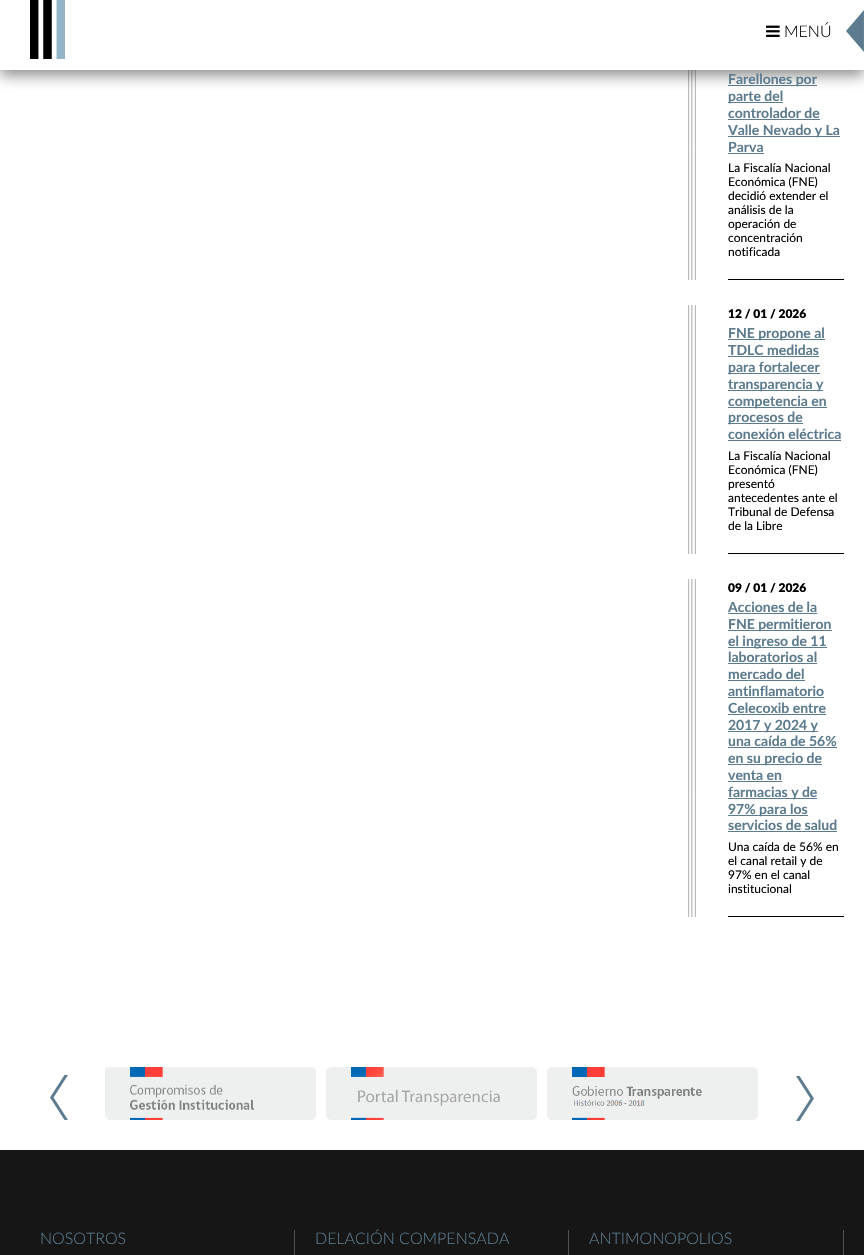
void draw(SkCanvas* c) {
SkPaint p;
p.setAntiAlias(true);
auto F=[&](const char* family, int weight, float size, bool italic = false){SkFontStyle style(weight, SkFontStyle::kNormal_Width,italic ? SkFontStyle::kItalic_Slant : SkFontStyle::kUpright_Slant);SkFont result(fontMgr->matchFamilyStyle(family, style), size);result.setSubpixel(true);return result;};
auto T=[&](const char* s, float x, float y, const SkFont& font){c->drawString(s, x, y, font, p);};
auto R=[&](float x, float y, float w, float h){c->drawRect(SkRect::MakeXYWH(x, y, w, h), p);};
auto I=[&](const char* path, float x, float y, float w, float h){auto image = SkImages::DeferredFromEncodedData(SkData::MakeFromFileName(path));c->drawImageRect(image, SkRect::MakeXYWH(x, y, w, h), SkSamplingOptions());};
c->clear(0xffffffff);
I("4.png",688,70,8,210);
p.setColor(0xff5c7b8e);
R(728,85,89,1);
p.setColor(0x96323232);
p.setMaskFilter(SkMaskFilter::MakeBlur(kNormal_SkBlurStyle, 7));
c->drawRect(SkRect::MakeXYWH(0,5,864,70),p);
p.setMaskFilter(nullptr);
p.setColor(0xffffffff);
R(0,0,864,70);
I("1.png",30,0,35,59);
I("2.png",766,25,14,12);
auto f1 = F("Lato",300,16);
p.setColor(0xff000000);
T("MENÚ",784,37,f1);
I("3.png",846,10,18,42);
auto f2 = F("Lato",700,14);
p.setColor(0xff5c7b8e);
T("Farellones por",728,84,f2);
R(728,102,55,1);
T("parte del",728,101,f2);
T("controlador de",728,118,f2);
R(728,119,92,1);
R(728,136,112,1);
T("Valle Nevado y La",728,135,f2);
T("Parva",728,152,f2);
R(728,153,36,1);
p.setColor(0xff000000);
R(728,279,116,1);
auto f3 = F("Lato",400,12);
T("La Fiscalía Nacional",728,172,f3);
T("Económica (FNE)",728,186,f3);
T("decidió extender el",728,200,f3);
T("análisis de la",728,214,f3);
T("operación de",728,228,f3);
T("concentración",728,242,f3);
T("notificada",728,256,f3);
I("5.png",688,305,8,249);
auto f4 = F("Lato",900,12);
T("12 / 01 / 2026",728,318,f4);
p.setColor(0xff5c7b8e);
R(728,339,97,1);
T("FNE propone al",728,338,f2);
T("TDLC medidas",728,355,f2);
R(728,356,91,1);
R(728,373,92,1);
T("para fortalecer",728,372,f2);
R(728,390,95,1);
T("transparencia y",728,389,f2);
R(728,407,99,1);
T("competencia en",728,406,f2);
R(728,423,75,1);
T("procesos de",728,422,f2);
T("conexión eléctrica",728,439,f2);
R(728,440,113,1);
p.setColor(0xff000000);
R(728,553,116,1);
T("La Fiscalía Nacional",728,460,f3);
T("Económica (FNE)",728,474,f3);
T("presentó",728,488,f3);
T("antecedentes ante el",728,502,f3);
T("Tribunal de Defensa",728,516,f3);
T("de la Libre",728,530,f3);
I("6.png",688,579,8,338);
T("09 / 01 / 2026",728,592,f4);
p.setColor(0xff5c7b8e);
T("Acciones de la",728,612,f2);
R(728,613,89,1);
R(728,630,104,1);
T("FNE permitieron",728,629,f2);
R(728,647,99,1);
T("el ingreso de 11",728,646,f2);
T("laboratorios al",728,662,f2);
R(728,663,89,1);
T("mercado del",728,679,f2);
R(728,680,77,1);
T("antinflamatorio",728,696,f2);
R(728,697,96,1);
T("Celecoxib entre",728,713,f2);
R(728,714,98,1);
R(728,731,90,1);
T("2017 y 2024 y",728,730,f2);
T("una caída de 56%",728,746,f2);
R(728,747,109,1);
R(728,764,94,1);
T("en su precio de",728,763,f2);
T("venta en",728,780,f2);
R(728,781,54,1);
R(728,798,89,1);
T("farmacias y de",728,797,f2);
R(728,815,80,1);
T("97% para los",728,814,f2);
T("servicios de salud",728,830,f2);
R(728,831,109,1);
p.setColor(0xff000000);
R(728,916,116,1);
T("Una caída de 56% en",728,851,f3);
T("el canal retail y de",728,865,f3);
T("97% en el canal",728,879,f3);
T("institucional",728,893,f3);
I("7.png",105,1067,211,53);
I("8.png",326,1067,211,53);
I("9.png",547,1067,211,53);
I("10.png",50,1075,18,45);
I("11.png",796,1076,18,45);
p.setColor(0xff161616);
R(0,1150,864,105);
p.setColor(0xff505050);
R(294,1230,1,25);
p.setColor(0xff5c7b8e);
T("NOSOTROS",40,1244,f1);
p.setColor(0xff505050);
R(568,1230,1,25);
p.setColor(0xff5c7b8e);
T("DELACIÓN COMPENSADA",315,1244,f1);
p.setColor(0xff505050);
R(843,1230,1,25);
p.setColor(0xff5c7b8e);
T("ANTIMONOPOLIOS",589,1244,f1);
}
